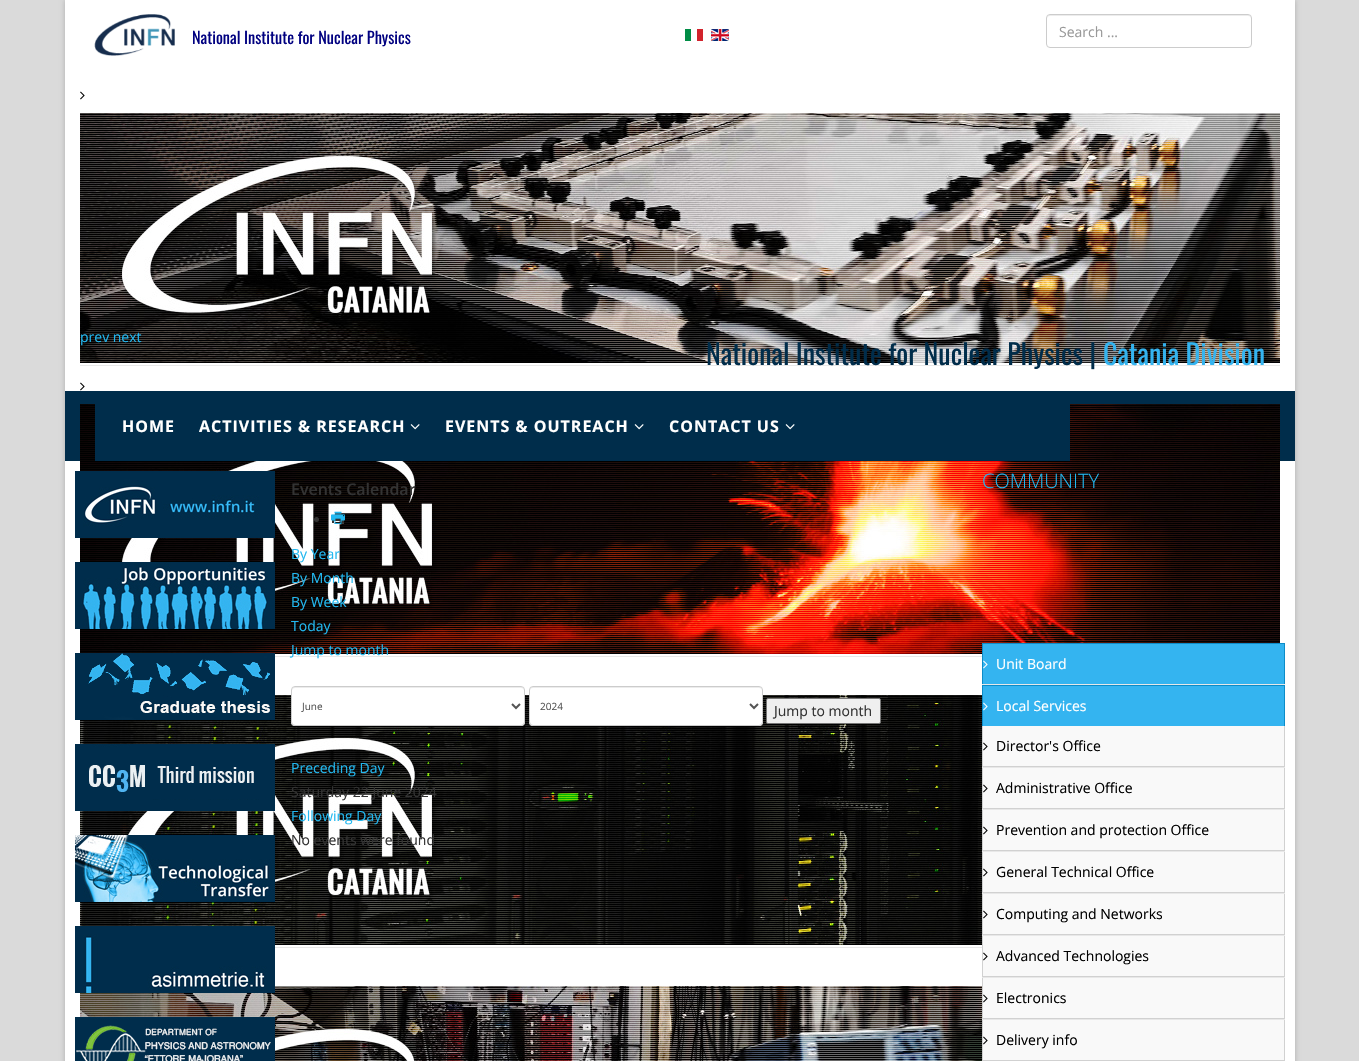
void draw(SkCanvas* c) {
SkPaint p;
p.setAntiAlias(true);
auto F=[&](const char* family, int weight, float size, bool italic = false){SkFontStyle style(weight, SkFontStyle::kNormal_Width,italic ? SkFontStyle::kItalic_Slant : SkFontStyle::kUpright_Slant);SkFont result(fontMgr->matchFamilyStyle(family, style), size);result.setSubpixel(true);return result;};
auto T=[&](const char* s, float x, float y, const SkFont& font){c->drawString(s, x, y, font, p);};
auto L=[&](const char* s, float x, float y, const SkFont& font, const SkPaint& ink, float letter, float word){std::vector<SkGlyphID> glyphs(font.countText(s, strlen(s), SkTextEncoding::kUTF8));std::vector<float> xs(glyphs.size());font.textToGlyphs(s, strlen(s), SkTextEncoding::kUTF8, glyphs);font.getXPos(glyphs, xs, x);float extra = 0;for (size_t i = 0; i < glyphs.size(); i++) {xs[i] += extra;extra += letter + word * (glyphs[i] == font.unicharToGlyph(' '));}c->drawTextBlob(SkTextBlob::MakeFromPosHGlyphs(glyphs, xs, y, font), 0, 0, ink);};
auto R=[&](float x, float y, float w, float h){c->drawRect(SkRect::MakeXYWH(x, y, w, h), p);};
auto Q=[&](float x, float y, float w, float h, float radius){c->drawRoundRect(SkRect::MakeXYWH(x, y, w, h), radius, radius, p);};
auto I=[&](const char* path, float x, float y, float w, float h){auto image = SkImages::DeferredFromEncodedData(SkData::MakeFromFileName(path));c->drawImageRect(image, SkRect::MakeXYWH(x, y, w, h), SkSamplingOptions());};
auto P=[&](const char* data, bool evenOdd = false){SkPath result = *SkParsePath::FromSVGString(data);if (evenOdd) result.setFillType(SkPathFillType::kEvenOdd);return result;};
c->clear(0xffdadada);
p.setColor(0x33000000);
p.setMaskFilter(SkMaskFilter::MakeBlur(kNormal_SkBlurStyle, 2.5));
c->drawRect(SkRect::MakeXYWH(65,0,1230,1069),p);
p.setMaskFilter(nullptr);
p.setColor(0xffffffff);
R(65,0,1230,1061);
I("1.png",94,14,81,42);
auto f1 = F("Oswald",400,16.25);
p.setColor(0xff000080);
T("National Institute for Nuclear Physics",192,44,f1);
I("2.png",685,29,18,12);
I("3.png",711,29,18,12);
p.setColor(0xffececec);
c->drawPath(P("M1050 16h198c2 0 3 1 3 3c0-2-1-4-3-4h-198c-2 0-3 2-3 4c0-2 1-3 3-3z"),p);
p.setStroke(true);
p.setStrokeWidth(1);
p.setColor(0xffcccccc);
c->drawRoundRect(SkRect::MakeXYWH(1046.5,14.5,205,33),3.5,3.5,p);
auto f2 = F("Open Sans",400,14);
p.setStroke(false);
p.setColor(0xff999999);
T("Search ...",1059,37,f2);
p.setColor(0xffe8e8e8);
R(80,365,1200,1);
I("4.png",80,91,5,9);
I("5.png",80,113,1200,250);
R(275,656,707,1);
I("4.png",80,382,5,9);
p.setColor(0xff002d4b);
R(65,391,1230,70);
I("6.png",80,404,1200,250);
p.setColor(0xffe8e8e8);
R(275,947,707,1);
I("7.png",80,695,902,250);
I("8.png",80,986,902,75);
p.setColor(0xff22b8f0);
T("prev next",80,342,f2);
auto f3 = F("Oswald",400,28);
p.setColor(0xff002d4b);
T("National Institute for Nuclear Physics |",706,365,f3);
p.setColor(0xff34b4f0);
T("Catania Division",1103,365,f3);
p.setColor(0xff002d4b);
R(95,404,975,57);
auto f4 = F("Open Sans",700,16);
p.setColor(0xffffffff);
L("HOME",122,432,f4,p,1,0);
L("ACTIVITIES & RESEARCH",199,432,f4,p,1,0);
I("9.png",410,424,10,6);
L("EVENTS & OUTREACH",445,432,f4,p,1,0);
I("9.png",634,424,10,6);
L("CONTACT US",669,432,f4,p,1,0);
I("9.png",785,424,10,6);
I("10.png",75,471,200,67);
I("11.png",75,562,200,67);
I("12.png",75,653,200,67);
I("13.png",75,744,200,67);
I("14.png",75,835,200,67);
I("15.png",75,926,200,67);
I("16.png",75,1017,200,44);
auto f5 = F("Open Sans",600,16);
p.setColor(0xff333333);
T("Events Calendar",291,495,f5);
c->drawCircle(316.5,519.5,2.5,p);
I("17.png",332,513,12,12);
I("18.png",331,511,14,13);
p.setColor(0xff22b8f0);
T("By Year",291,559,f2);
T("By Month",291,583,f2);
T("By Week",291,607,f2);
T("Today",291,631,f2);
T("Jump to month",291,655,f2);
p.setColor(0xffffffff);
Q(291,686,234,40,4);
p.setColor(0xffececec);
c->drawPath(P("M295 688h226c2 0 3 1 3 3c0-2-1-4-3-4h-226c-2 0-3 2-3 4c0-2 1-3 3-3z"),p);
p.setStroke(true);
p.setColor(0xffcccccc);
c->drawRoundRect(SkRect::MakeXYWH(291.5,686.5,233,39),3.5,3.5,p);
p.setStrokeWidth(2);
p.setColor(0xff555555);
c->drawPath(P("M512 704l4 4l4-4"),p);
auto f6 = F("Open Sans",400,10);
p.setStroke(false);
T("June",302,710,f6);
p.setColor(0xffffffff);
Q(529,686,234,40,4);
p.setColor(0xffececec);
c->drawPath(P("M533 688h226c2 0 3 1 3 3c0-2-1-4-3-4h-226c-2 0-3 2-3 4c0-2 1-3 3-3z"),p);
p.setStroke(true);
p.setStrokeWidth(1);
p.setColor(0xffcccccc);
c->drawRoundRect(SkRect::MakeXYWH(529.5,686.5,233,39),3.5,3.5,p);
p.setStrokeWidth(2);
p.setColor(0xff555555);
c->drawPath(P("M750 704l4 4l4-4"),p);
p.setStroke(false);
T("2024",540,710,f6);
p.setColor(0xffefefef);
c->drawRoundRect(SkRect::MakeXYWH(766.5,698.5,114,25),1.5,1.5,p);
p.setStroke(true);
p.setStrokeWidth(1);
p.setColor(0xff767676);
c->drawRoundRect(SkRect::MakeXYWH(766.5,698.5,114,25),1.5,1.5,p);
p.setStroke(false);
p.setColor(0xff333333);
T("Jump to month",774,716,f2);
p.setColor(0xff22b8f0);
T("Preceding Day",291,773,f2);
p.setColor(0xff333333);
T("Saturday 22 June 2024",291,797,f2);
p.setColor(0xff22b8f0);
T("Following Day",291,821,f2);
p.setColor(0xff333333);
T("No events were found",291,845,f2);
auto f7 = F("Open Sans",300,20);
p.setColor(0xff22b8f0);
T("COMMUNITY",982,488,f7);
p.setColor(0xffe8e8e8);
R(982,684,303,1);
p.setColor(0xff34b4f0);
R(983,644,301,40);
p.setColor(0xff0c8cc8);
R(982,643,303,1);
R(1284,643,1,41);
R(982,643,1,41);
I("19.png",983,660,5,9);
p.setColor(0xffffffff);
T("Unit Board",996,669,f2);
p.setColor(0xff34b4f0);
R(983,686,301,40);
p.setColor(0xff0c8cc8);
R(982,685,303,1);
R(1284,685,1,41);
R(982,685,1,41);
I("19.png",983,702,5,9);
p.setColor(0xffffffff);
T("Local Services",996,711,f2);
p.setColor(0xffe8e8e8);
R(982,767,303,1);
p.setColor(0xfff9f9f9);
R(983,726,301,40);
p.setColor(0xffd1d1d1);
R(1284,726,1,41);
R(982,766,303,1);
R(982,726,1,41);
I("20.png",983,742,5,9);
p.setColor(0xff000000);
T("Director's Office",996,751,f2);
p.setColor(0xffe8e8e8);
R(982,809,303,1);
p.setColor(0xfff9f9f9);
R(983,768,301,40);
p.setColor(0xffd1d1d1);
R(1284,768,1,41);
R(982,808,303,1);
R(982,768,1,41);
I("20.png",983,784,5,9);
p.setColor(0xff000000);
T("Administrative Office",996,793,f2);
p.setColor(0xffe8e8e8);
R(982,851,303,1);
p.setColor(0xfff9f9f9);
R(983,810,301,40);
p.setColor(0xffd1d1d1);
R(1284,810,1,41);
R(982,850,303,1);
R(982,810,1,41);
I("20.png",983,826,5,9);
p.setColor(0xff000000);
T("Prevention and protection Office",996,835,f2);
p.setColor(0xffe8e8e8);
R(982,893,303,1);
p.setColor(0xfff9f9f9);
R(983,852,301,40);
p.setColor(0xffd1d1d1);
R(1284,852,1,41);
R(982,892,303,1);
R(982,852,1,41);
I("20.png",983,868,5,9);
p.setColor(0xff000000);
T("General Technical Office",996,877,f2);
p.setColor(0xffe8e8e8);
R(982,935,303,1);
p.setColor(0xfff9f9f9);
R(983,894,301,40);
p.setColor(0xffd1d1d1);
R(1284,894,1,41);
R(982,934,303,1);
R(982,894,1,41);
I("20.png",983,910,5,9);
p.setColor(0xff000000);
T("Computing and Networks",996,919,f2);
p.setColor(0xffe8e8e8);
R(982,977,303,1);
p.setColor(0xfff9f9f9);
R(983,936,301,40);
p.setColor(0xffd1d1d1);
R(1284,936,1,41);
R(982,976,303,1);
R(982,936,1,41);
I("20.png",983,952,5,9);
p.setColor(0xff000000);
T("Advanced Technologies",996,961,f2);
p.setColor(0xffe8e8e8);
R(982,1019,303,1);
p.setColor(0xfff9f9f9);
R(983,978,301,40);
p.setColor(0xffd1d1d1);
R(1284,978,1,41);
R(982,1018,303,1);
R(982,978,1,41);
I("20.png",983,994,5,9);
p.setColor(0xff000000);
T("Electronics",996,1003,f2);
p.setColor(0xfff9f9f9);
R(983,1020,301,40);
p.setColor(0xffd1d1d1);
R(1284,1020,1,41);
R(982,1060,303,1);
R(982,1020,1,41);
I("20.png",983,1036,5,9);
p.setColor(0xff000000);
T("Delivery info",996,1045,f2);
}
